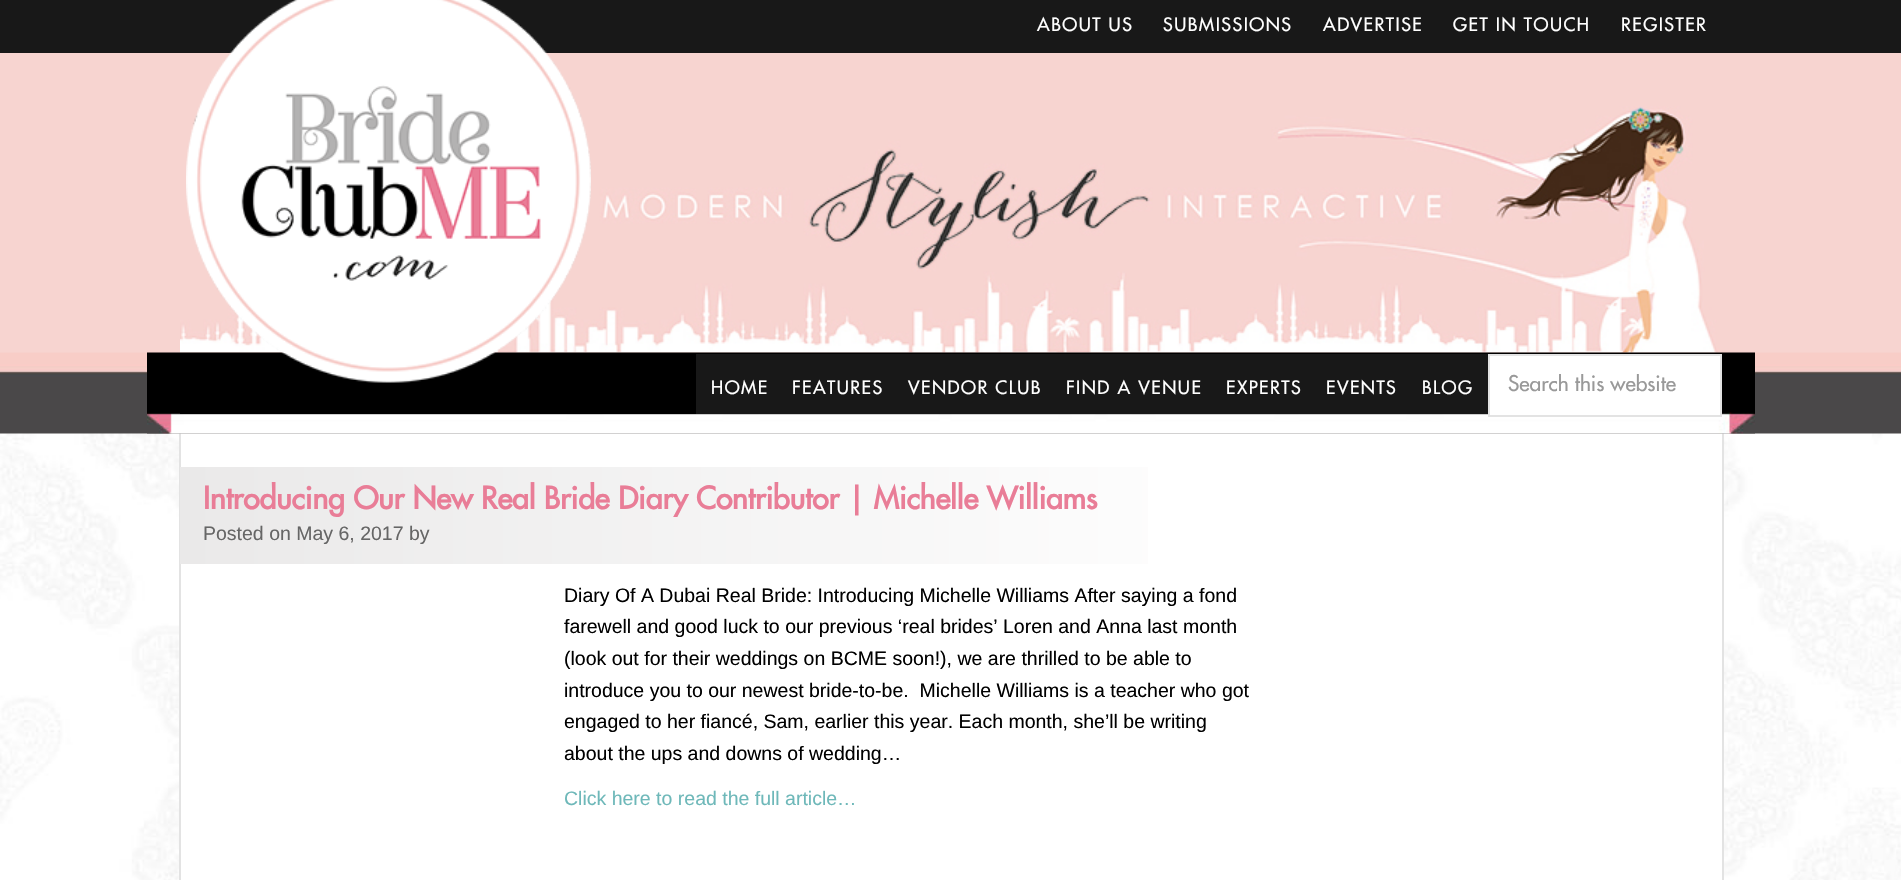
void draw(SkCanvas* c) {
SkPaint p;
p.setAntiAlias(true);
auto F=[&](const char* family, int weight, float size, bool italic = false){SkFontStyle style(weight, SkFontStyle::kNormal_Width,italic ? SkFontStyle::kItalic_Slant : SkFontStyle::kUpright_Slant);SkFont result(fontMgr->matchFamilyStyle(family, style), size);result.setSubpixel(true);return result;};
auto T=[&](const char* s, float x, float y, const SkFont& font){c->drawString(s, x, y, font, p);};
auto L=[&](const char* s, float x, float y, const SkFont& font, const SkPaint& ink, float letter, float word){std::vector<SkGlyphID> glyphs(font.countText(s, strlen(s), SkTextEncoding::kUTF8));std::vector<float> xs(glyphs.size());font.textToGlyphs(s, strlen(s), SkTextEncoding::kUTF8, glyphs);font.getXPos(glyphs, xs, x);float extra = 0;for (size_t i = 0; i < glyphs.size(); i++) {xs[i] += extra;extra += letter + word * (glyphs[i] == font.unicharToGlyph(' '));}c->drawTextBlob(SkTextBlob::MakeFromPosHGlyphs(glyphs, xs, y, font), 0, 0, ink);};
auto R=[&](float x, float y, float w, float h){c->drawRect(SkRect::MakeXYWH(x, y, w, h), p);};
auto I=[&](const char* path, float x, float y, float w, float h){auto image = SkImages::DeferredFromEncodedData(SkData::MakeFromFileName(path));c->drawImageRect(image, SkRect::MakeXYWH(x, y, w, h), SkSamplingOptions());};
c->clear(0xffffffff);
I("1.png",0,433,1901,447);
p.setColor(0xffffffff);
R(181,433,1541,447);
p.setStroke(true);
p.setStrokeWidth(2);
p.setColor(0xffe3e3e3);
c->drawRect(SkRect::MakeXYWH(180,1,1543,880),p);
p.setStroke(false);
p.setColor(0xff181818);
R(0,0,1901,53);
p.setColor(0xfff7d4d0);
R(0,53,1901,300);
I("3.png",180,106,1539,247);
I("4.png",0,352,1901,82);
I("5.png",147,352,1608,82);
I("2.png",186,0,405,383);
auto f1 = F("Futura",500,18);
p.setColor(0xffffffff);
L("ABOUT US",1037,31,f1,p,1.5,0);
L("SUBMISSIONS",1163,31,f1,p,1.5,0);
L("ADVERTISE",1323,31,f1,p,1.5,0);
L("GET IN TOUCH",1453,31,f1,p,1.5,0);
L("REGISTER",1621,31,f1,p,1.5,0);
p.setColor(0xff000000);
R(180,413,516,1);
p.setColor(0xff181818);
R(696,354,792,60);
p.setColor(0xffffffff);
L("HOME",711,394,f1,p,1.5,0);
L("FEATURES",792,394,f1,p,1.5,0);
L("VENDOR CLUB",908,394,f1,p,1.5,0);
L("FIND A VENUE",1066,394,f1,p,1.5,0);
L("EXPERTS",1226,394,f1,p,1.5,0);
L("EVENTS",1326,394,f1,p,1.5,0);
L("BLOG",1422,394,f1,p,1.5,0);
c->drawRect(SkRect::MakeXYWH(1489,355,232,61),p);
p.setStroke(true);
p.setColor(0xffe3e3e3);
c->drawRect(SkRect::MakeXYWH(1489,355,232,61),p);
c->save();
c->clipRect(SkRect::MakeXYWH(1508,374,195,24));
auto f2 = F("Futura",500,21);
p.setStroke(false);
p.setColor(0xff999999);
T("Search this website",1508,391,f2);
c->restore();
{
const SkColor colors[] = {0xffeae9e9,0xffffffff};
const float stops[] = {0,1};
const SkPoint ends[] = {{180,467}, {1272,467}};
p.setShader(SkGradientShader::MakeLinear(ends, colors, stops, 2, SkTileMode::kClamp));
p.setAlpha(255);
}
R(180,467,968,51);
auto f3 = F("Futura",700,30);
p.setShader(nullptr);
p.setColor(0xffe97d97);
T("Introducing Our New Real Bride Diary Contributor | Michelle Williams",203,509,f3);
{
const SkColor colors[] = {0xffeae9e9,0xffffffff};
const float stops[] = {0,1};
const SkPoint ends[] = {{180,518}, {1272,518}};
p.setShader(SkGradientShader::MakeLinear(ends, colors, stops, 2, SkTileMode::kClamp));
p.setAlpha(255);
}
R(180,518,968,46);
auto f4 = F("Liberation Sans",400,19.5);
p.setShader(nullptr);
p.setColor(0xff666666);
T("Posted on May 6, 2017 by",203,540,f4);
p.setColor(0xff000000);
T("Diary Of A Dubai Real Bride: Introducing Michelle Williams After saying a fond",564,602,f4);
T("farewell and good luck to our previous ‘real brides’ Loren and Anna last month",564,633,f4);
T("(look out for their weddings on BCME soon!), we are thrilled to be able to",564,665,f4);
T("introduce you to our newest bride-to-be.  Michelle Williams is a teacher who got",564,697,f4);
T("engaged to her fiancé, Sam, earlier this year. Each month, she’ll be writing",564,728,f4);
T("about the ups and downs of wedding…",564,760,f4);
p.setColor(0xff6eb8b9);
T("Click here to read the full article…",564,805,f4);
}
